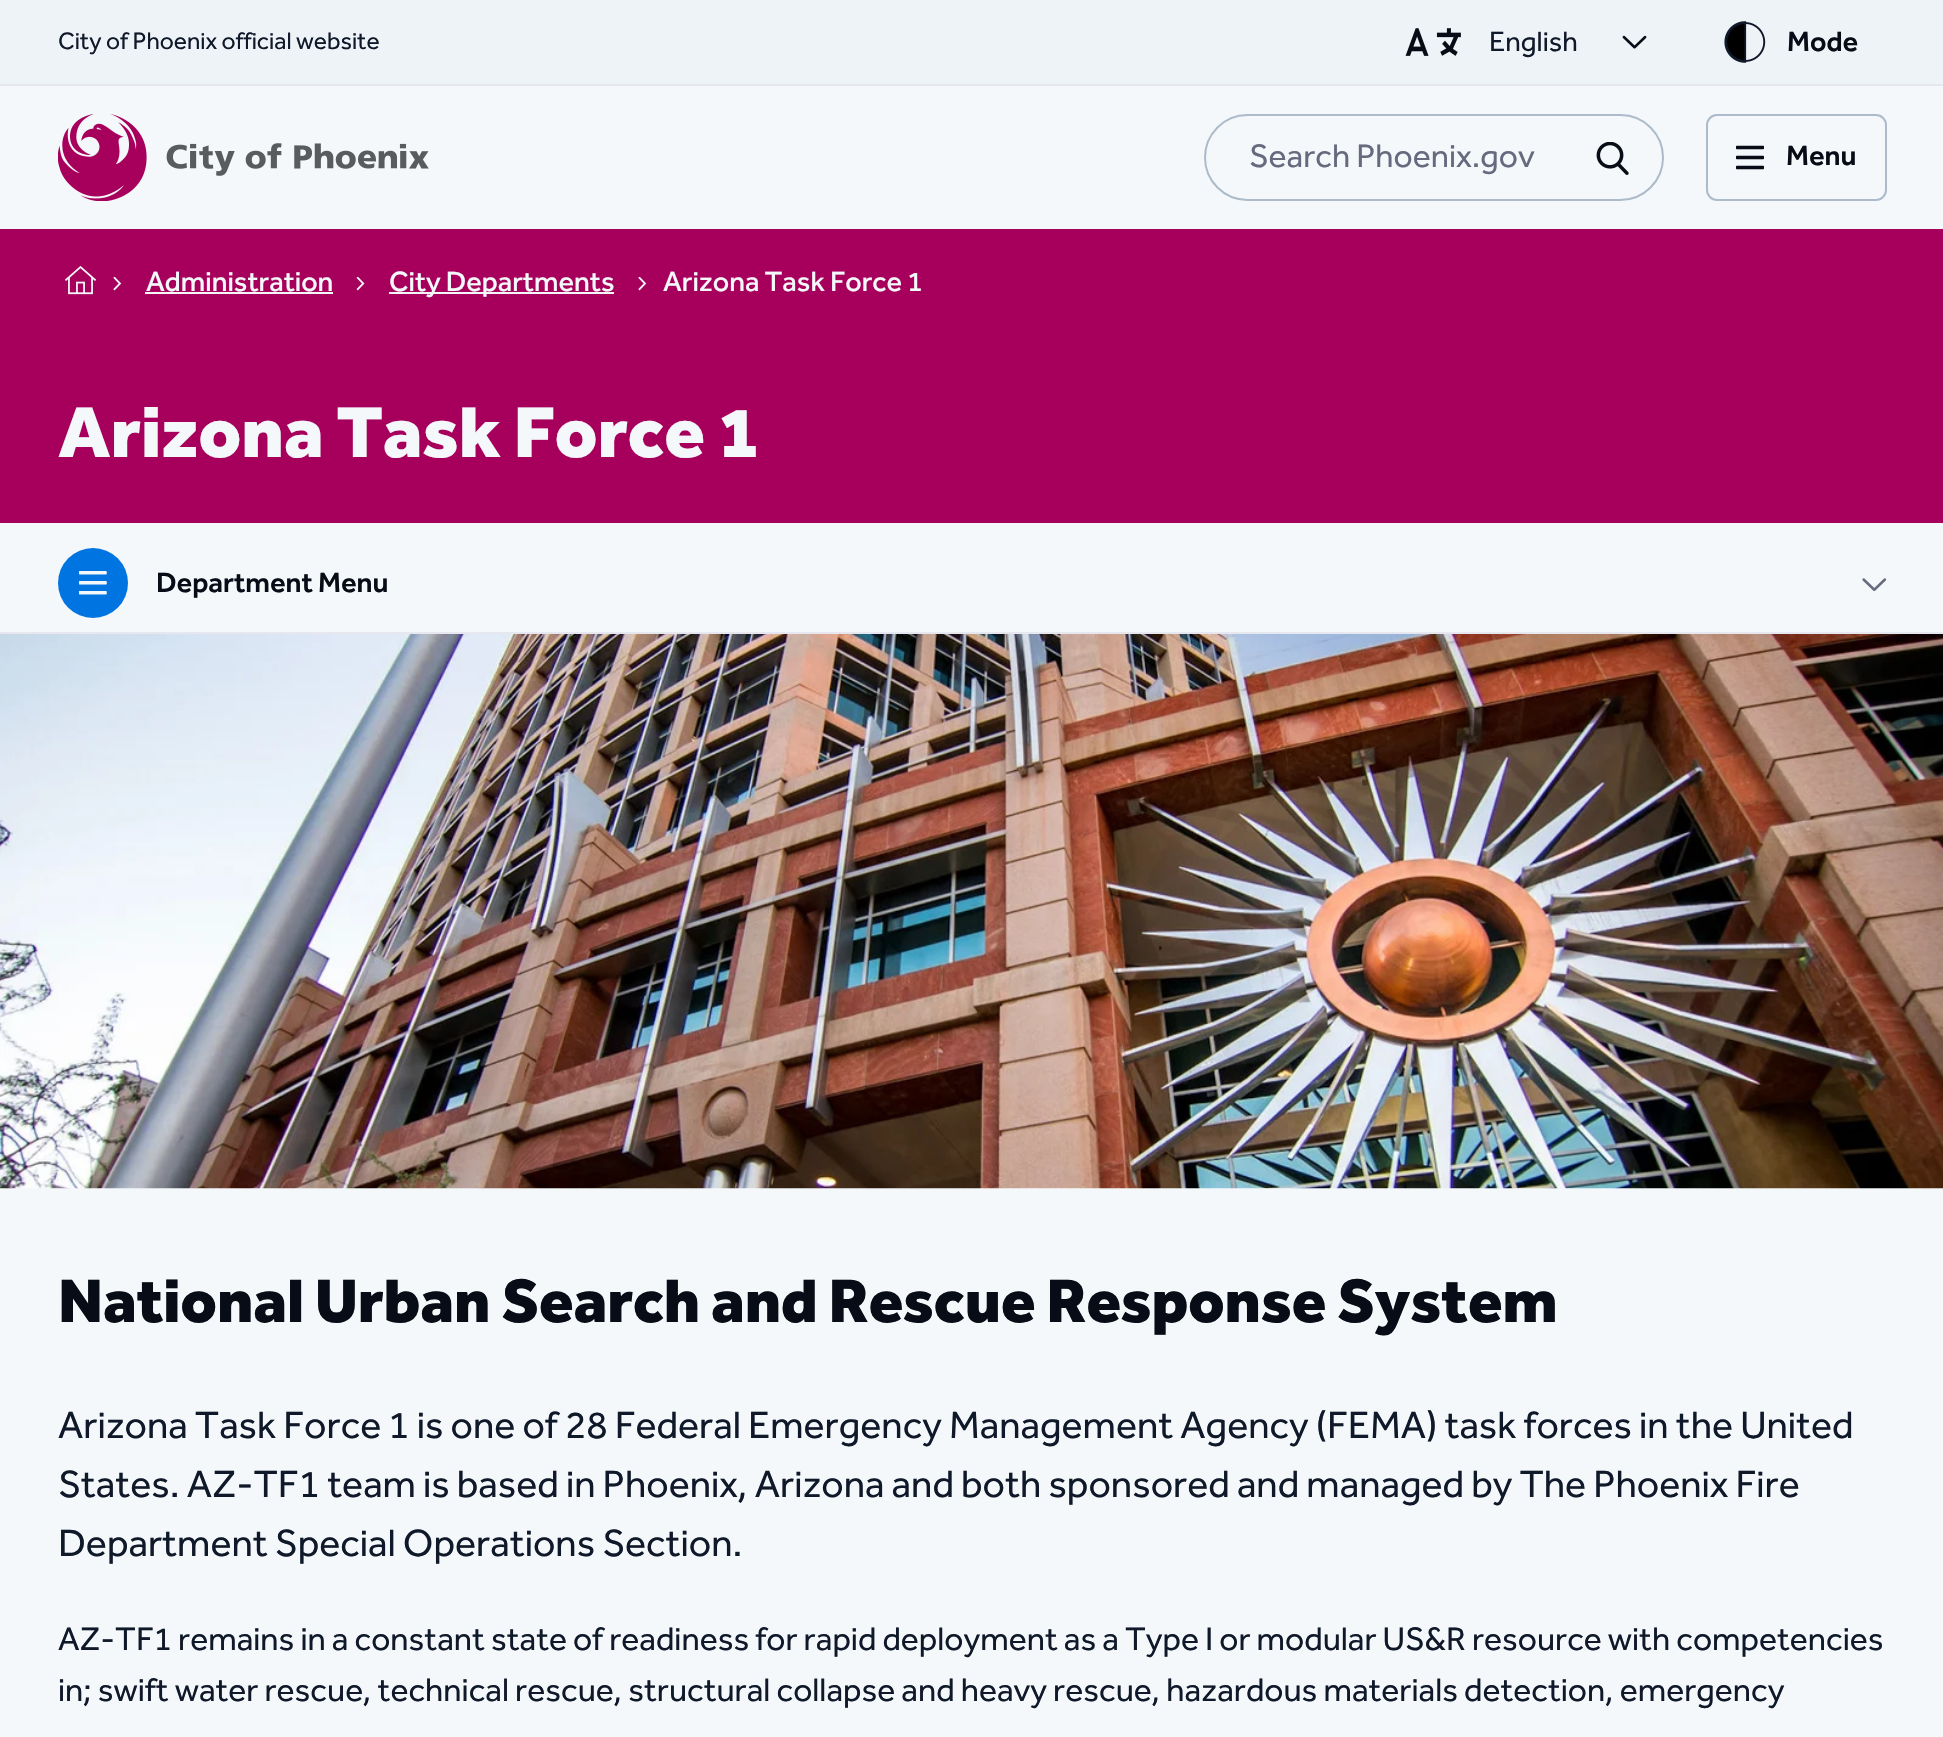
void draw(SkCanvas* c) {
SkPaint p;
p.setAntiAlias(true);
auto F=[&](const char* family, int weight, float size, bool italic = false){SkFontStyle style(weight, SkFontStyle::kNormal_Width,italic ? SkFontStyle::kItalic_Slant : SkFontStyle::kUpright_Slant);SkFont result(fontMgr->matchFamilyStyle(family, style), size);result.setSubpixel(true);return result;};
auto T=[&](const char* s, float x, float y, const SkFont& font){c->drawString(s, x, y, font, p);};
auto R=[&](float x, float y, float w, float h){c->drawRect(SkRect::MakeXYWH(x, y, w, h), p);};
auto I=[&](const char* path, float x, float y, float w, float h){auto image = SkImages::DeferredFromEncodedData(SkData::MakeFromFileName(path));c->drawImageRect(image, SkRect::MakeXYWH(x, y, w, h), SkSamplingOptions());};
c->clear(0xfff4f8fb);
p.setColor(0xffeef3f7);
R(0,0,1943,84);
p.setColor(0xffe7e8ef);
R(0,84,1943,2);
auto f1 = F("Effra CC",400,24.6);
p.setColor(0xff10192a);
T("City of Phoenix official website",58,49,f1);
I("1.png",1622,35,25,14);
I("2.png",1405,28,56,28);
auto f2 = F("Effra CC",400,28.75);
T("English",1489,51,f2);
I("3.png",1724,21,42,42);
auto f3 = F("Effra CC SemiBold",600,28.75);
p.setColor(0xff070c16);
T("Mode",1787,51,f3);
I("4.png",58,114,371,87);
p.setStroke(true);
p.setStrokeWidth(2);
p.setColor(0xffacbbca);
c->drawRoundRect(SkRect::MakeXYWH(1205,115,458,85),42.5,42.5,p);
auto f4 = F("Effra CC",400,33.6);
p.setStroke(false);
p.setColor(0xff67697e);
T("Search Phoenix.gov",1249,167,f4);
I("5.png",1596,142,33,33);
p.setStroke(true);
p.setColor(0xffacbbca);
c->drawRoundRect(SkRect::MakeXYWH(1707,115,179,85),10,10,p);
I("6.png",1736,145,28,25);
p.setStroke(false);
p.setColor(0xff070c16);
T("Menu",1786,165,f3);
p.setColor(0xffa7005c);
R(0,229,1943,294);
I("7.png",65,266,31,29);
I("8.png",113,277,9,14);
auto f5 = F("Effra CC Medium",500,28.75);
p.setColor(0xfff4f8fb);
T("Administration",146,291,f5);
R(145,292,188,2);
I("9.png",356,277,9,14);
R(389,292,225,2);
T("City Departments",389,291,f5);
I("8.png",638,277,9,14);
T("Arizona Task Force 1",663,291,f5);
auto f6 = F("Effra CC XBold",700,74.4);
T("Arizona Task Force 1",58,457,f6);
p.setColor(0xffe7e8ef);
R(0,632,1943,2);
p.setColor(0xff0074e0);
c->drawCircle(93,583,35,p);
I("10.png",79,571,28,24);
p.setColor(0xff070c16);
T("Department Menu",156,592,f3);
I("11.png",1862,578,25,13);
I("12.png",0,634,1943,555);
auto f7 = F("Effra CC XBold",700,63.3);
T("National Urban Search and Rescue Response System",58,1322,f7);
auto f8 = F("Effra CC",400,39.3);
p.setColor(0xff10192a);
T("Arizona Task Force 1 is one of 28 Federal Emergency Management Agency (FEMA) task forces in the United",58,1438,f8);
T("States. AZ-TF1 team is based in Phoenix, Arizona and both sponsored and managed by The Phoenix Fire",58,1497,f8);
T("Department Special Operations Section.",58,1556,f8);
T("AZ-TF1 remains in a constant state of readiness for rapid deployment as a Type I or modular US&R resource with competencies",58,1650,f4);
T("in; swift water rescue, technical rescue, structural collapse and heavy rescue, hazardous materials detection, emergency",58,1701,f4);
}
